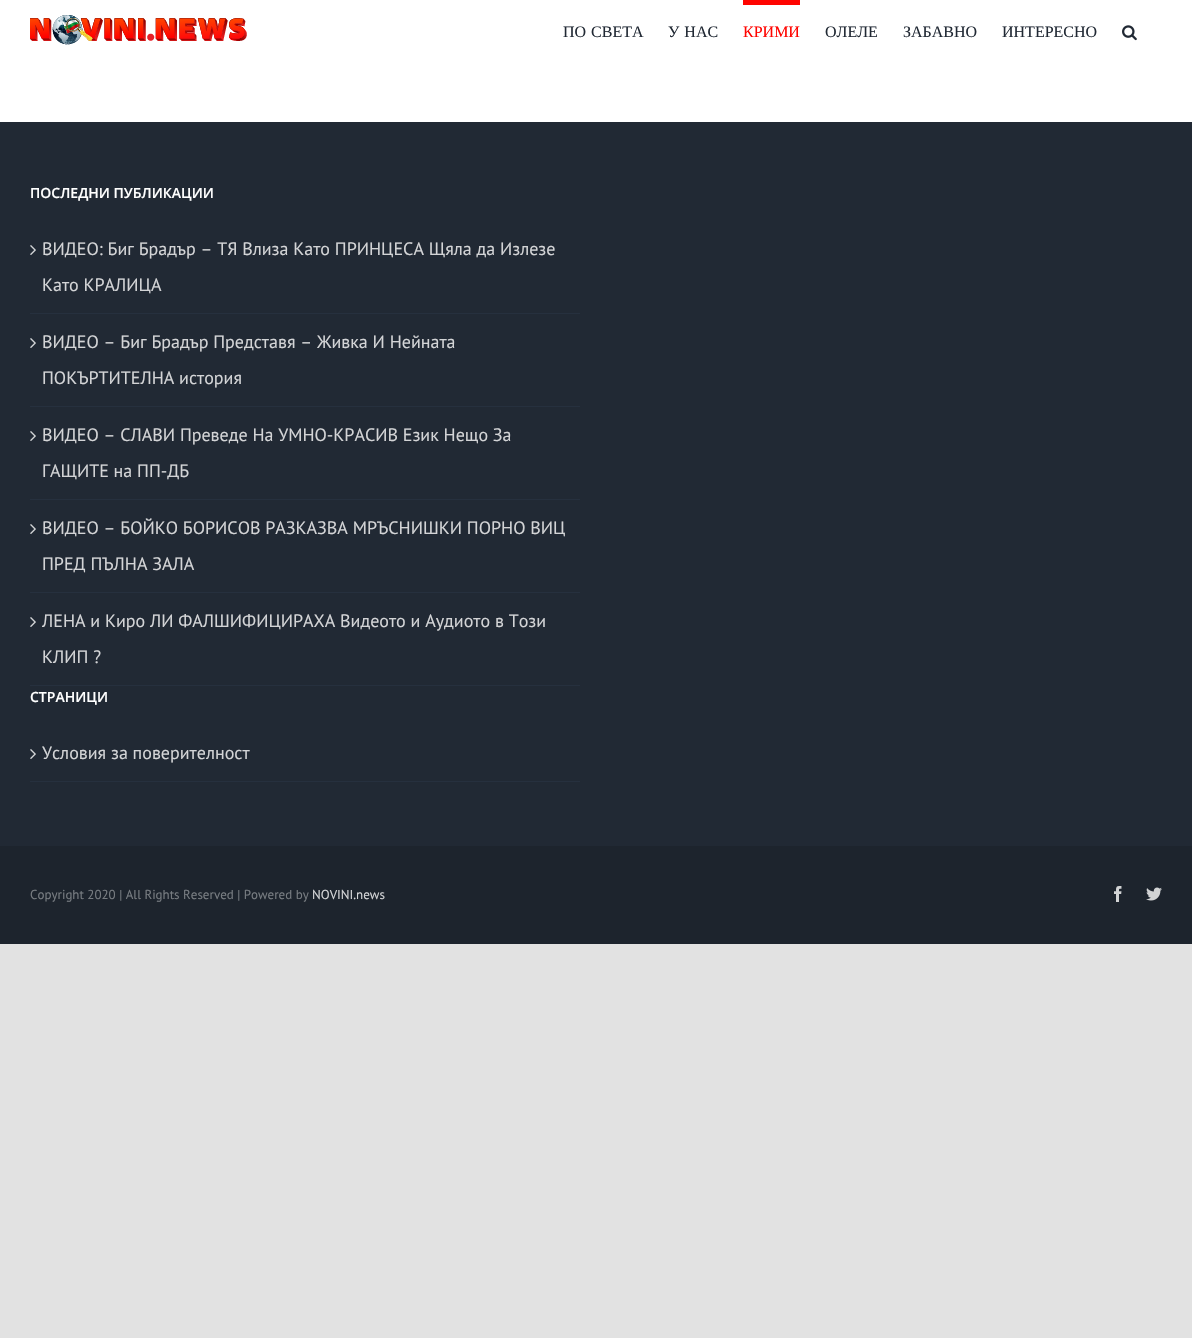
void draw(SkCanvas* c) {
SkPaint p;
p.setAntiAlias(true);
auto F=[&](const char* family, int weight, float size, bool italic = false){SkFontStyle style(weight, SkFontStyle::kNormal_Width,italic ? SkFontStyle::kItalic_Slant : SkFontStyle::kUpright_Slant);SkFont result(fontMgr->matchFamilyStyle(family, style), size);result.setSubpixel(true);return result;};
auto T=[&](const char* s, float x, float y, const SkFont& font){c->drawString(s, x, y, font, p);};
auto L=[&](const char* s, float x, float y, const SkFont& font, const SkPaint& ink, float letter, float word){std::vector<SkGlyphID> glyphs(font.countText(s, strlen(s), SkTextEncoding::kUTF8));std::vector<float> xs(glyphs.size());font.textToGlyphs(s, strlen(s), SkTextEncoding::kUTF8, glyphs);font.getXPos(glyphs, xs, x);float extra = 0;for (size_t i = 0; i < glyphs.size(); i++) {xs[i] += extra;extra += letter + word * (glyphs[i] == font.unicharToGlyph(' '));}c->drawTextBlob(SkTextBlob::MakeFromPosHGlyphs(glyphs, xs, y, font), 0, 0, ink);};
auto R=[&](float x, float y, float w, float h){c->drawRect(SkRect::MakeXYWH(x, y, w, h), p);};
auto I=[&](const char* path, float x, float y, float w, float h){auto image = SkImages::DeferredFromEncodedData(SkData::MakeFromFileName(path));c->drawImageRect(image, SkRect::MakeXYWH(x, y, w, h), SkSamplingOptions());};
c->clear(0xffe2e2e2);
p.setColor(0xffffffff);
R(0,0,1192,122);
I("1.png",30,15,217,30);
auto f1 = F("Liberation Serif",400,16);
p.setColor(0xff212934);
L("ПО СВЕТА",563,37,f1,p,0,1);
L("У НАС",668,37,f1,p,0,1);
p.setColor(0xffff0400);
R(743,0,57,5);
T("КРИМИ",743,37,f1);
p.setColor(0xff212934);
T("ОЛЕЛЕ",825,37,f1);
T("ЗАБАВНО",903,37,f1);
T("ИНТЕРЕСНО",1002,37,f1);
I("2.png",1122,25,15,16);
R(0,122,1192,724);
auto f2 = F("Open Sans",600,14);
p.setColor(0xffffffff);
T("ПОСЛЕДНИ ПУБЛИКАЦИИ",30,198,f2);
p.setColor(0xff26303e);
R(30,313,550,1);
I("3.png",30,245,6,10);
auto f3 = F("PT Sans",400,18);
p.setColor(0xffd3d4d6);
T("ВИДЕО: Биг Брадър – ТЯ Влиза Като ПРИНЦЕСА Щяла да Излезе",42,255,f3);
T("Като КРАЛИЦА",42,291,f3);
p.setColor(0xff26303e);
R(30,406,550,1);
I("3.png",30,338,6,10);
p.setColor(0xffd3d4d6);
T("ВИДЕО – Биг Брадър Представя – Живка И Нейната",42,348,f3);
T("ПОКЪРТИТЕЛНА история",42,384,f3);
p.setColor(0xff26303e);
R(30,499,550,1);
I("3.png",30,431,6,10);
p.setColor(0xffd3d4d6);
T("ВИДЕО – СЛАВИ Преведе На УМНО-КРАСИВ Език Нещо За",42,441,f3);
T("ГАЩИТЕ на ПП-ДБ",42,477,f3);
p.setColor(0xff26303e);
R(30,592,550,1);
I("3.png",30,524,6,10);
p.setColor(0xffd3d4d6);
T("ВИДЕО – БОЙКО БОРИСОВ РАЗКАЗВА МРЪСНИШКИ ПОРНО ВИЦ",42,534,f3);
T("ПРЕД ПЪЛНА ЗАЛА",42,570,f3);
p.setColor(0xff26303e);
R(30,685,550,1);
I("3.png",30,617,6,10);
p.setColor(0xffd3d4d6);
T("ЛЕНА и Киро ЛИ ФАЛШИФИЦИРАХА Видеото и Аудиото в Този",42,627,f3);
T("КЛИП ?",42,663,f3);
p.setColor(0xffffffff);
T("СТРАНИЦИ",30,702,f2);
p.setColor(0xff26303e);
R(30,781,550,1);
I("3.png",30,749,6,10);
p.setColor(0xffd3d4d6);
T("Условия за поверителност",42,759,f3);
p.setColor(0xff1d242d);
R(0,846,1192,98);
auto f4 = F("PT Sans",400,13);
p.setColor(0xff777c81);
T("Copyright 2020 | All Rights Reserved | Powered by",30,899,f4);
p.setColor(0xffd3d4d6);
T("NOVINI.news",312,899,f4);
I("4.png",1114,886,8,16);
I("5.png",1146,887,16,14);
}
